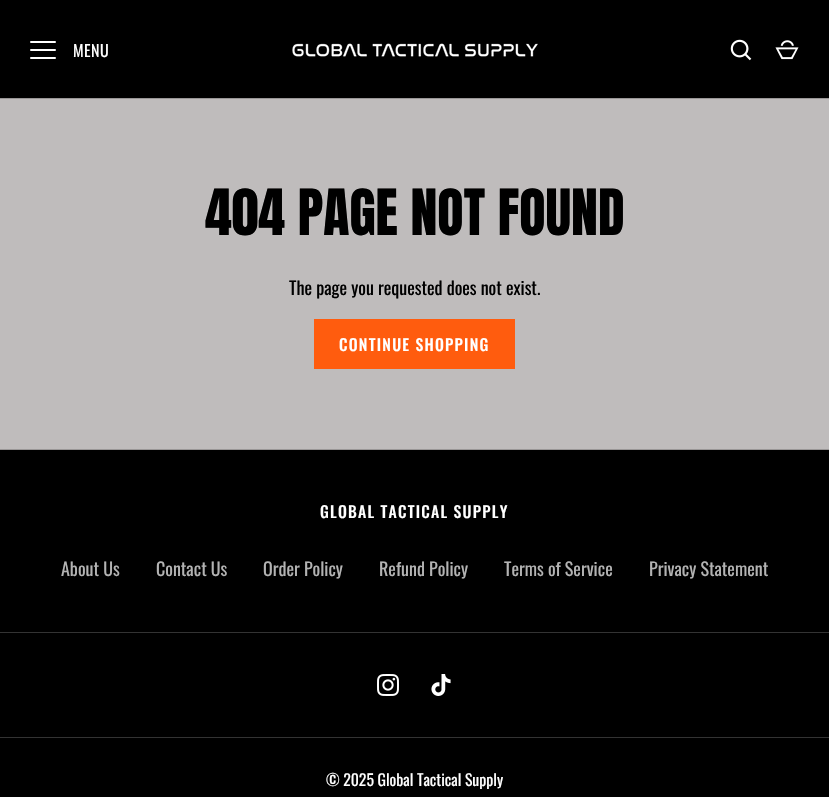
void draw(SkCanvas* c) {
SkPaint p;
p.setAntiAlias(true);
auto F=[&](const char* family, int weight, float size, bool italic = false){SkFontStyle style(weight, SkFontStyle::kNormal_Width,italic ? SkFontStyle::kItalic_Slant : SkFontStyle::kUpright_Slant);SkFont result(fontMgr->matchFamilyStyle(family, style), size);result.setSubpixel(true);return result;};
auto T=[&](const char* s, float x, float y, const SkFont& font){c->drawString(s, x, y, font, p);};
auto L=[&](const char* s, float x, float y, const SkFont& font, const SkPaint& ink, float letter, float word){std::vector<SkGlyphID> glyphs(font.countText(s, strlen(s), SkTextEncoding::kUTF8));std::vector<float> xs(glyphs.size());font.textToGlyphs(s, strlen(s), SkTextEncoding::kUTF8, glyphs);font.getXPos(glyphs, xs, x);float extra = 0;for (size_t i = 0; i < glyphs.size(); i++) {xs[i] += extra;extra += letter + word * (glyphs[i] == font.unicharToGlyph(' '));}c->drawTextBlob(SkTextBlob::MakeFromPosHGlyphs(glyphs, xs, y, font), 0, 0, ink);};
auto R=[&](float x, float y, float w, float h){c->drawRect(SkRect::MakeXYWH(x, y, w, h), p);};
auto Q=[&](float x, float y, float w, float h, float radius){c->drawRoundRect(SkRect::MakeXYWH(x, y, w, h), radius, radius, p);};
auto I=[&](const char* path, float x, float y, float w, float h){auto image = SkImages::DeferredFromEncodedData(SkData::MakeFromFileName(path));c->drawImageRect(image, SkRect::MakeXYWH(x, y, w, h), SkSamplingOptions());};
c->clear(0xffbfbcbc);
p.setColor(0xff000000);
R(0,0,829,98);
p.setColor(0xff999696);
R(0,98,829,1);
p.setColor(0xffffffff);
Q(30,41,26,2,1);
Q(30,49,26,2,1);
Q(30,57,26,2,1);
auto f1 = F("Oswald",400,16);
L("MENU",73,57,f1,p,.5,0);
I("1.png",292,43,246,14);
I("2.png",730,39,22,22);
I("3.png",775,40,24,20);
auto f2 = F("Anton",400,54);
p.setColor(0xff000000);
T("404 PAGE NOT FOUND",205,235,f2);
auto f3 = F("Oswald",400,18);
T("The page you requested does not exist.",289,295,f3);
p.setColor(0xffff5c0e);
R(314,319,201,50);
auto f4 = F("Oswald",500,15.75);
p.setColor(0xffffffff);
L("CONTINUE SHOPPING",339,351,f4,p,1.25,0);
p.setColor(0xff000000);
R(0,450,829,347);
p.setColor(0xff999696);
R(0,449,829,1);
p.setColor(0xffffffff);
L("GLOBAL TACTICAL SUPPLY",320,518,f4,p,1.25,0);
p.setColor(0xffb3b3b3);
T("About Us",61,576,f3);
T("Contact Us",156,576,f3);
T("Order Policy",263,576,f3);
T("Refund Policy",379,576,f3);
T("Terms of Service",504,576,f3);
T("Privacy Statement",649,576,f3);
p.setColor(0xff333333);
R(0,632,829,1);
I("4.png",377,674,22,22);
I("5.png",431,674,20,22);
R(0,737,829,1);
auto f5 = F("Oswald",400,15.75);
p.setColor(0xffffffff);
T("© 2025 Global Tactical Supply",326,786,f5);
}
